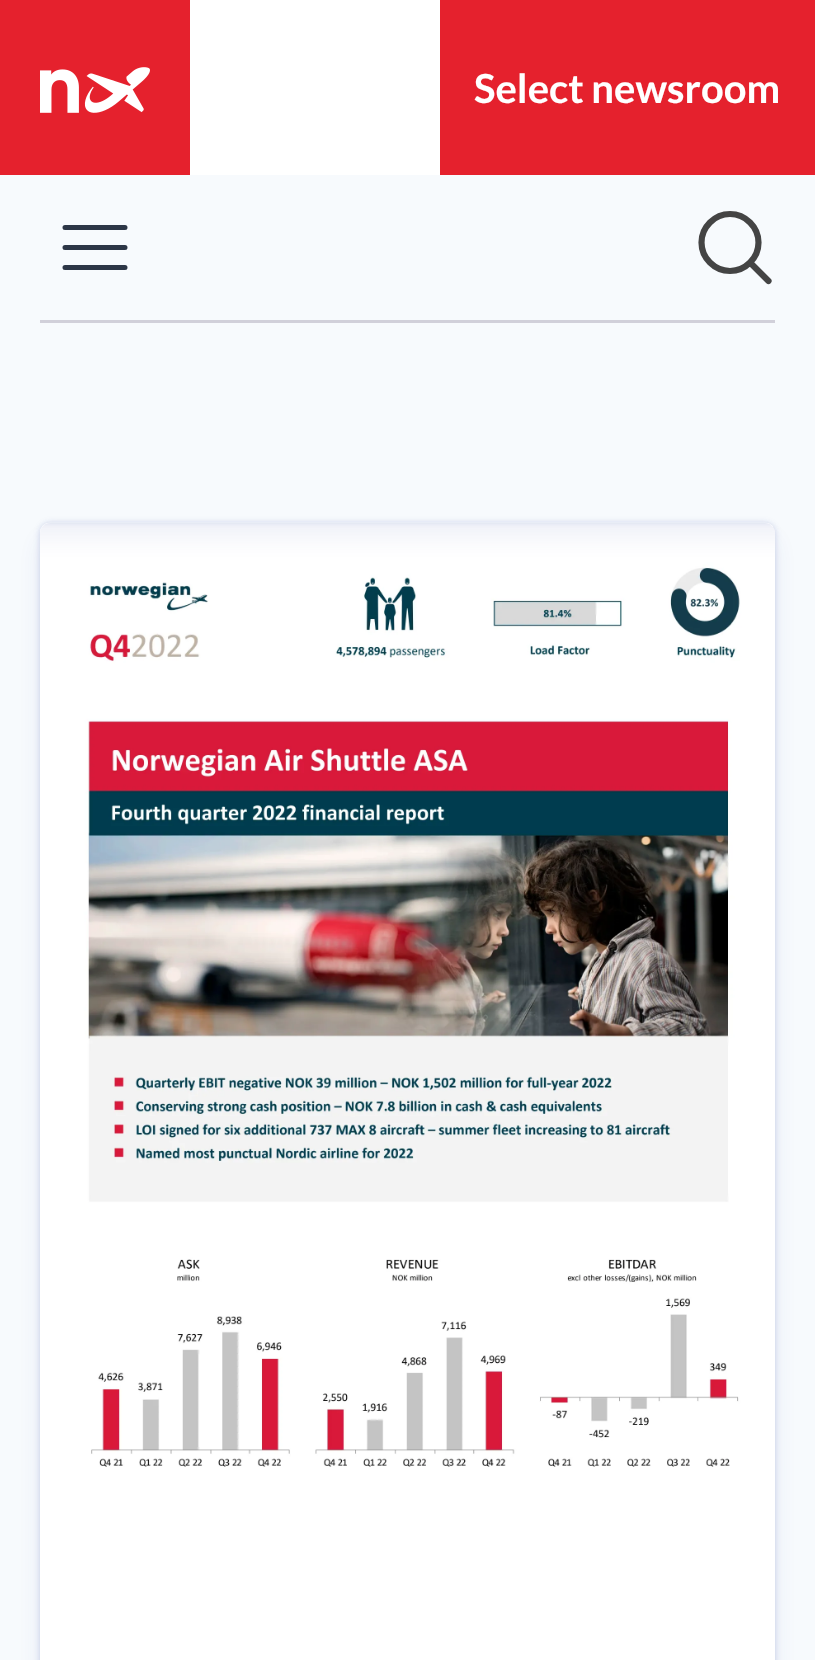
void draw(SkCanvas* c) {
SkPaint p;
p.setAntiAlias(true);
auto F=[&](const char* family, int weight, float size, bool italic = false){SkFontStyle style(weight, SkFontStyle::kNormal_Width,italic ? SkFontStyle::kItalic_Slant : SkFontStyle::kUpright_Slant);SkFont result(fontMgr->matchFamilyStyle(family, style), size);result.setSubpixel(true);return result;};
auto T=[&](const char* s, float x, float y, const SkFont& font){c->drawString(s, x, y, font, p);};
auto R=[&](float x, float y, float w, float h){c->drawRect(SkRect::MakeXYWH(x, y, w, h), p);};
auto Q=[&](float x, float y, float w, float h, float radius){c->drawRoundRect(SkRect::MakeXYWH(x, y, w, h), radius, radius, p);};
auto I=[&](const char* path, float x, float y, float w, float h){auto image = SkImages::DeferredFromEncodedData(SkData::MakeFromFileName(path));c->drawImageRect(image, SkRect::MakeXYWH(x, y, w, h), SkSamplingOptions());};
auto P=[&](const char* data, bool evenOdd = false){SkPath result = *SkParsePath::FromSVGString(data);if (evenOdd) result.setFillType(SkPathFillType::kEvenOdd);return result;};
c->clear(0xfff7fafd);
p.setColor(0x243149a4);
p.setMaskFilter(SkMaskFilter::MakeBlur(kNormal_SkBlurStyle, 2.5));
c->drawRoundRect(SkRect::MakeXYWH(40,523,735,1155),10,10,p);
p.setMaskFilter(nullptr);
p.setColor(0x1a3149a4);
p.setMaskFilter(SkMaskFilter::MakeBlur(kNormal_SkBlurStyle, 4));
c->drawRoundRect(SkRect::MakeXYWH(40,523,735,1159),10,10,p);
p.setMaskFilter(nullptr);
p.setColor(0x143149a4);
p.setMaskFilter(SkMaskFilter::MakeBlur(kNormal_SkBlurStyle, 12.5));
c->drawRoundRect(SkRect::MakeXYWH(40,538,735,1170),10,10,p);
p.setMaskFilter(nullptr);
p.setColor(0xffffffff);
Q(40,523,735,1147,10);
c->drawPath(P("M50 523h715c5.5 0 10 4.5 10 10v1030h-735v-1030c0-5.5 4.5-10 10-10z"),p);
I("1.png",40,522,733,945);
p.setColor(0xffd1d0da);
R(40,320,735,3);
p.setStroke(true);
p.setStrokeWidth(5);
p.setStrokeCap(SkPaint::kRound_Cap);
p.setStrokeJoin(SkPaint::kRound_Join);
p.setColor(0xff2c3647);
c->drawPath(P("M65 247.5h60m-60-20h60m-60 40h60"),p);
p.setStrokeWidth(6.2);
p.setStrokeJoin(SkPaint::kMiter_Join);
p.setColor(0xff444444);
c->drawPath(P("M758.5 242.5c0 15.5-13 28.5-28.5 28.5c-15.5 0-28.5-13-28.5-28.5c0-15.5 13-28.5 28.5-28.5c15.5 0 28.5 13 28.5 28.5zm10 38.5l-18.5-18.5"),p);
c->save();
c->clipPath(P("M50 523h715c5.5 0 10 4.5 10 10v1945c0 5.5-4.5 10-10 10h-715c-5.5 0-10-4.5-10-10v-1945c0-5.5 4.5-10 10-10z"),true);
p.setStroke(false);
p.setColor(0x243149a4);
p.setMaskFilter(SkMaskFilter::MakeBlur(kNormal_SkBlurStyle, 2.5));
c->drawRoundRect(SkRect::MakeXYWH(-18,-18,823,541),10,10,p);
p.setMaskFilter(nullptr);
p.setColor(0x143149a4);
p.setMaskFilter(SkMaskFilter::MakeBlur(kNormal_SkBlurStyle, 12.5));
c->drawRoundRect(SkRect::MakeXYWH(-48,-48,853,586),10,10,p);
p.setMaskFilter(nullptr);
c->restore();
p.setColor(0xffffffff);
R(190,0,250,175);
p.setColor(0xffe5212d);
R(0,0,190,175);
I("2.png",40,67,110,46);
R(440,0,375,175);
auto f1 = F("Lato",700,40);
p.setColor(0xffffffff);
T("Select newsroom",474,103,f1);
}
